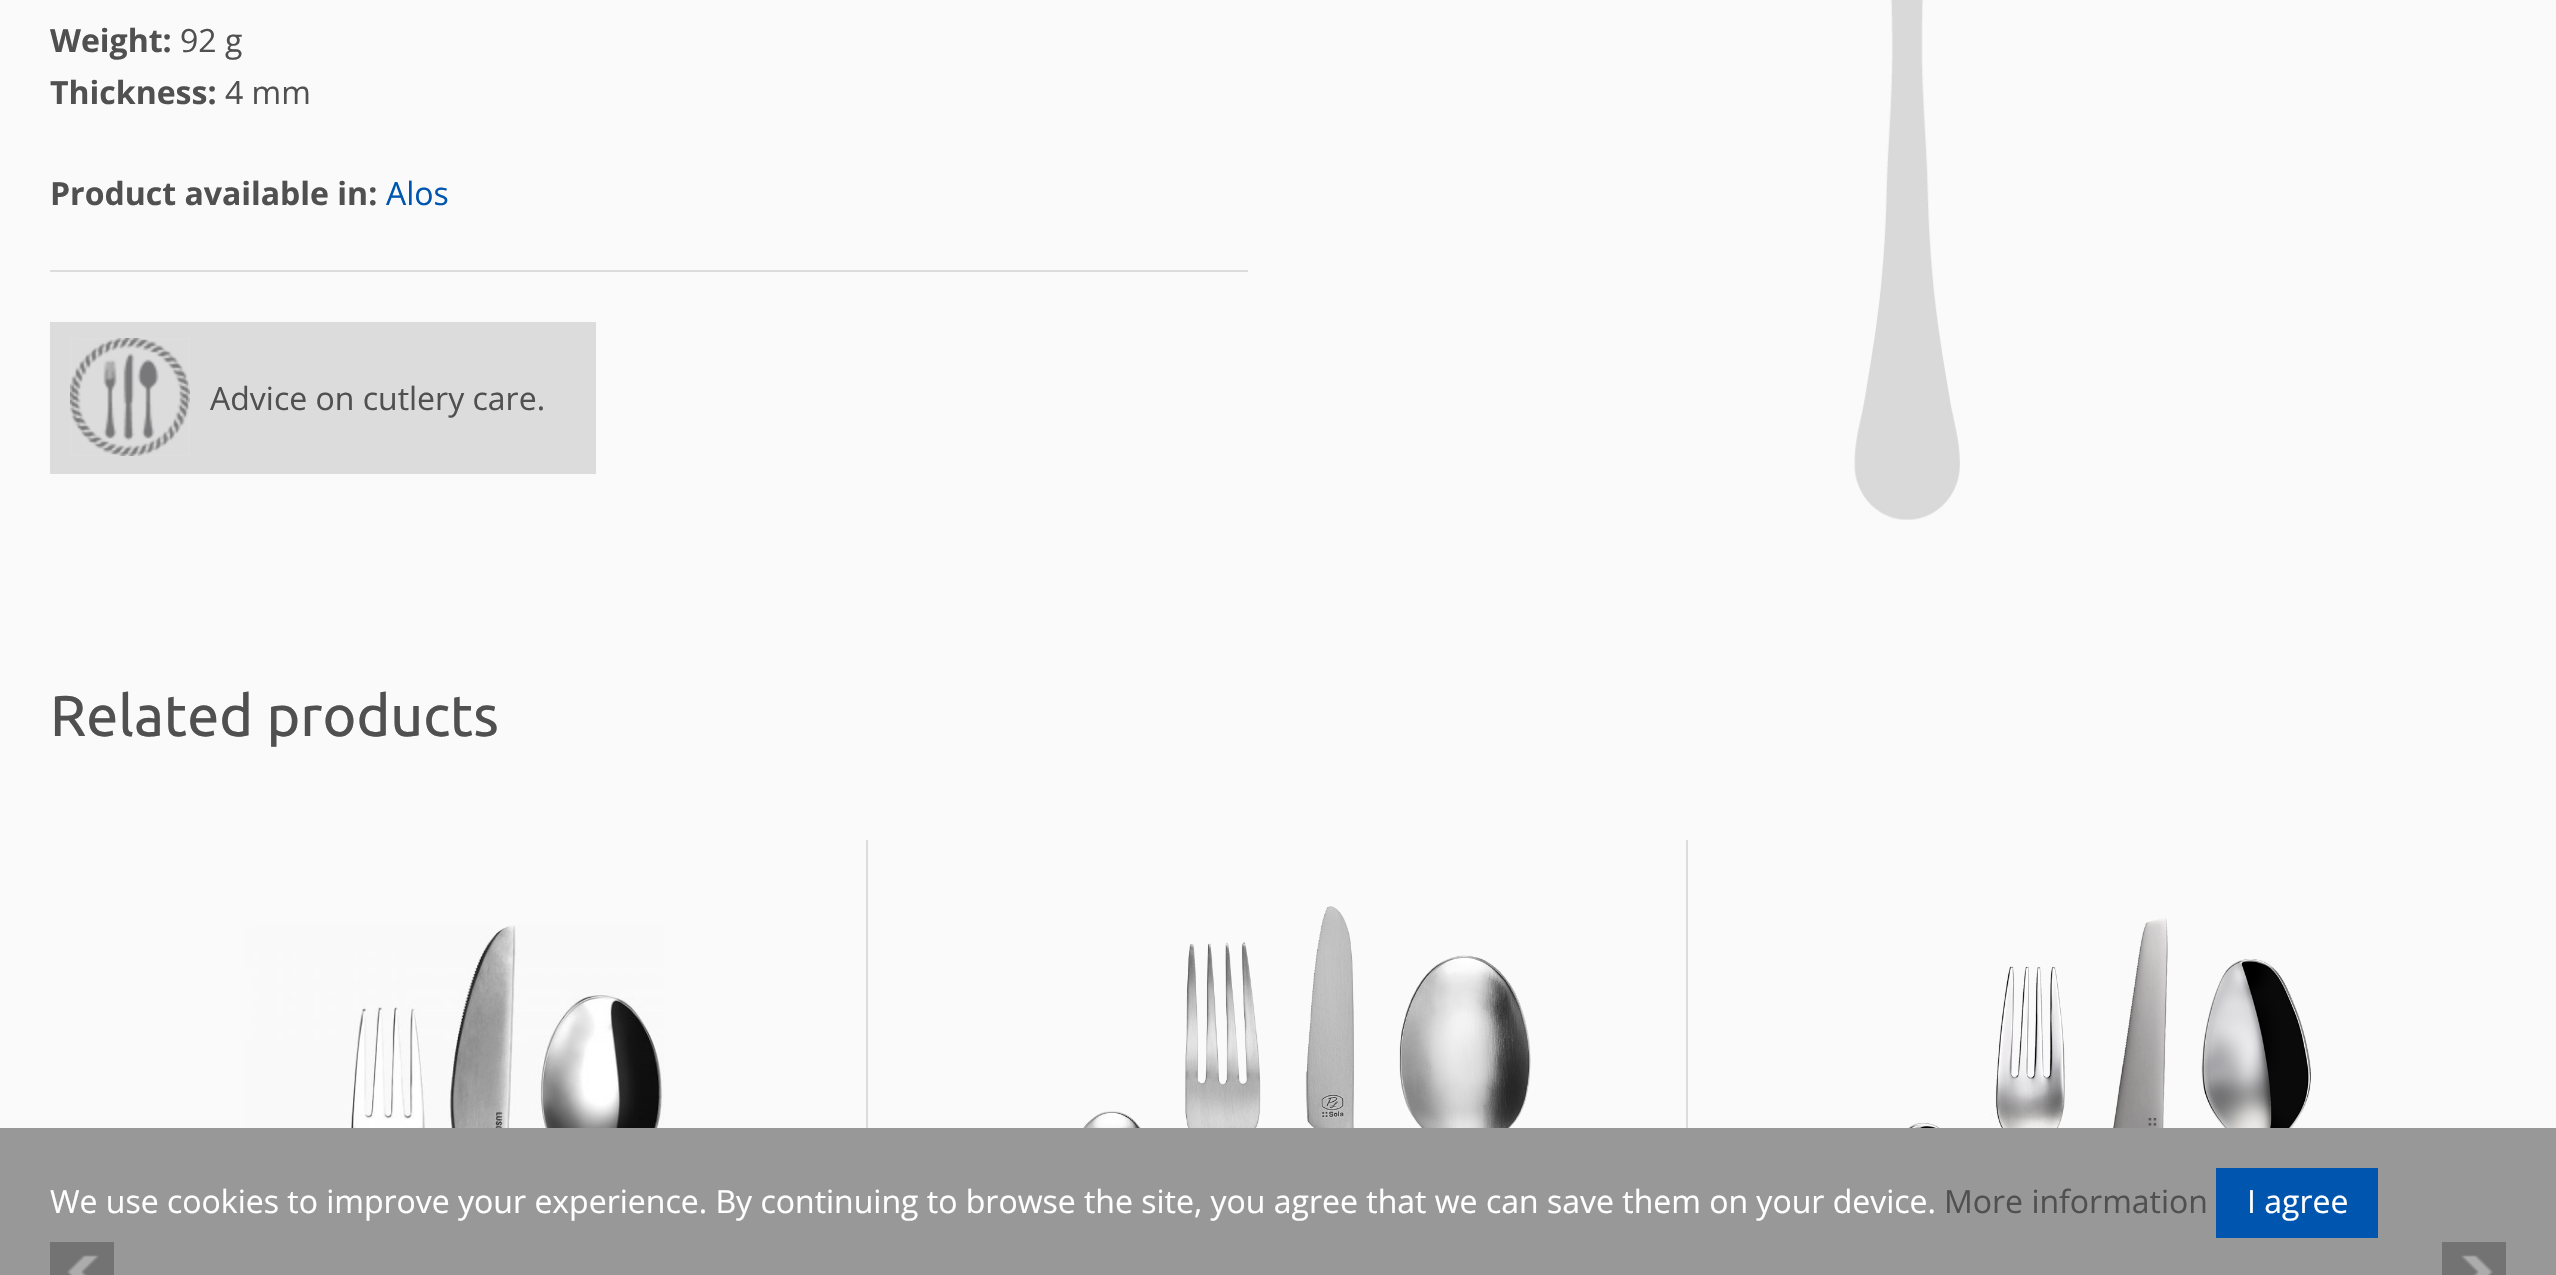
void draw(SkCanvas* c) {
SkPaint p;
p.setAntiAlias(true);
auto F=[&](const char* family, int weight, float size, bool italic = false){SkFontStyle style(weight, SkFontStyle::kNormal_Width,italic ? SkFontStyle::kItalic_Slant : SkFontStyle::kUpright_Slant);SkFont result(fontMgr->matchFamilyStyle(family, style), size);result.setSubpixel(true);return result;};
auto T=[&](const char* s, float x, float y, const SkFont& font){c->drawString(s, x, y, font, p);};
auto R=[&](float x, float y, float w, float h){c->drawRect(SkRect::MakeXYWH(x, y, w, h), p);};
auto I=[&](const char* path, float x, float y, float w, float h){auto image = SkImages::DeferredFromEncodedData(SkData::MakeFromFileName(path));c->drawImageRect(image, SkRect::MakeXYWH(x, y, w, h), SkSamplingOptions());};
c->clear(0xfffafafa);
p.setColor(0xffdcdcdc);
R(50,270,1198,2);
auto f1 = F("Open Sans",700,32);
p.setColor(0xff505050);
T("Weight:",50,52,f1);
auto f2 = F("Open Sans",400,32);
T("92 g",180,52,f2);
T("Thickness:",50,104,f1);
T("4 mm",225,104,f2);
T("Product available in:",50,205,f1);
p.setColor(0xff0055af);
T("Alos",386,205,f2);
p.setColor(0xffdcdcdc);
R(50,322,546,152);
I("1.png",70,338,120,118);
p.setColor(0xff505050);
T("Advice on cutlery care.",210,410,f2);
I("2.png",1854,0,106,520);
auto f3 = F("Ubuntu",400,57.5);
T("Related products",50,736,f3);
p.setColor(0xffdcdcdc);
R(866,840,2,288);
I("3.png",245,925,419,203);
R(1686,840,2,288);
I("4.png",1083,906,448,222);
I("5.png",1889,918,422,210);
p.setColor(0xff989898);
R(0,1128,2556,147);
I("6.png",50,1242,64,33);
I("7.png",2442,1242,64,33);
p.setColor(0xffffffff);
T("We use cookies to improve your experience. By continuing to browse the site, you agree that we can save them on your device.",50,1213,f2);
p.setColor(0xff505050);
T("More information",1944,1213,f2);
p.setColor(0xff0055af);
R(2216,1168,162,70);
p.setColor(0xffffffff);
T("I agree",2247,1213,f2);
}
